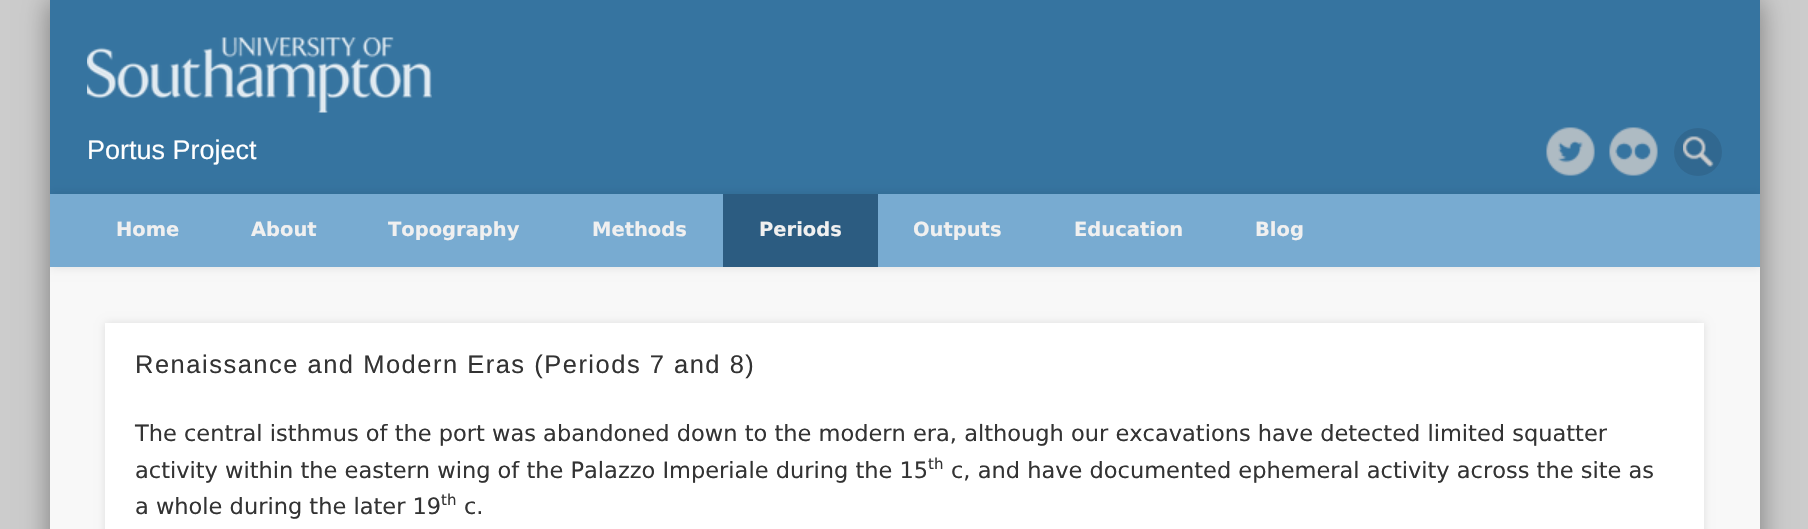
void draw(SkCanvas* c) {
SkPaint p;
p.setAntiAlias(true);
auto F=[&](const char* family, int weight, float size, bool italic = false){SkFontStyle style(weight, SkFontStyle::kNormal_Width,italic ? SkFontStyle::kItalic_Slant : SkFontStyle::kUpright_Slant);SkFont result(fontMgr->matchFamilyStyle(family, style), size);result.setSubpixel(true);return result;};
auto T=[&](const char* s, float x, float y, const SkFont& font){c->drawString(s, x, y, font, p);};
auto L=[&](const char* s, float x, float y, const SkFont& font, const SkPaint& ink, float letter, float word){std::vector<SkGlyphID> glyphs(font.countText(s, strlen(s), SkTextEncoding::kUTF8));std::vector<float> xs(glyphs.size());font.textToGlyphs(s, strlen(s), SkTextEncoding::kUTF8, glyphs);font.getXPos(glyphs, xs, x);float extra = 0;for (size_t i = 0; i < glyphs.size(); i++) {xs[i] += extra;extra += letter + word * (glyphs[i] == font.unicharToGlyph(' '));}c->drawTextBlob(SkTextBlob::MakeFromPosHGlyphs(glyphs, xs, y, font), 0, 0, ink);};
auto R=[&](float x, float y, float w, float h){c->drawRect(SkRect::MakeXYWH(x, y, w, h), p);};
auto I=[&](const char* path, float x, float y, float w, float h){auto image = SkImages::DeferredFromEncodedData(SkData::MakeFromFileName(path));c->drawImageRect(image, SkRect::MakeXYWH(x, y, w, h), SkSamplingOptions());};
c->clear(0xffcccccc);
p.setColor(0x66000000);
p.setMaskFilter(SkMaskFilter::MakeBlur(kNormal_SkBlurStyle, 13.5));
c->drawRect(SkRect::MakeXYWH(50,0,1710,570),p);
p.setMaskFilter(nullptr);
p.setColor(0xfff8f8f8);
R(50,267,1710,262);
p.setColor(0xff3674a0);
R(50,0,1710,194);
I("1.png",87,37,345,76);
auto f1 = F("Liberation Sans",400,27);
p.setColor(0xffffffff);
T("Portus Project",87,159,f1);
I("2.png",1546,127,49,49);
I("3.png",1609,127,49,49);
p.setColor(0xff316890);
c->drawCircle(1698,152,24,p);
I("4.png",1683,136,31,31);
c->save();
c->clipRect(SkRect::MakeXYWH(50,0,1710,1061));
p.setColor(0x1a000000);
p.setMaskFilter(SkMaskFilter::MakeBlur(kNormal_SkBlurStyle, 5));
c->drawRect(SkRect::MakeXYWH(50,194,1710,73),p);
p.setMaskFilter(nullptr);
c->restore();
p.setColor(0xff78abd1);
R(50,194,1710,73);
auto f2 = F("DejaVu Sans",700,19.5);
p.setColor(0xfff0f0f0);
T("Home",116,236,f2);
T("About",251,236,f2);
T("Topography",388,236,f2);
T("Methods",592,236,f2);
p.setColor(0xff2c5c81);
R(723,194,155,73);
p.setColor(0xfff0f0f0);
T("Periods",759,236,f2);
T("Outputs",913,236,f2);
T("Education",1074,236,f2);
T("Blog",1255,236,f2);
p.setColor(0x1a000000);
p.setMaskFilter(SkMaskFilter::MakeBlur(kNormal_SkBlurStyle, 4));
c->drawRect(SkRect::MakeXYWH(105,323,1599,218),p);
p.setMaskFilter(nullptr);
p.setColor(0xffffffff);
R(105,323,1599,206);
auto f3 = F("Liberation Sans",400,25.5);
p.setColor(0xff333333);
L("Renaissance and Modern Eras (Periods 7 and 8)",135,373,f3,p,1.5,0);
auto f4 = F("DejaVu Sans",400,22.5);
T("The central isthmus of the port was abandoned down to the modern era, although our excavations have detected limited squatter",135,441,f4);
T("activity within the eastern wing of the Palazzo Imperiale during the 15",135,478,f4);
auto f5 = F("DejaVu Sans",400,15);
T("th",928,469,f5);
T("c, and have documented ephemeral activity across the site as",951,478,f4);
T("a whole during the later 19",135,514,f4);
T("th",441,505,f5);
T("c.",464,514,f4);
}
